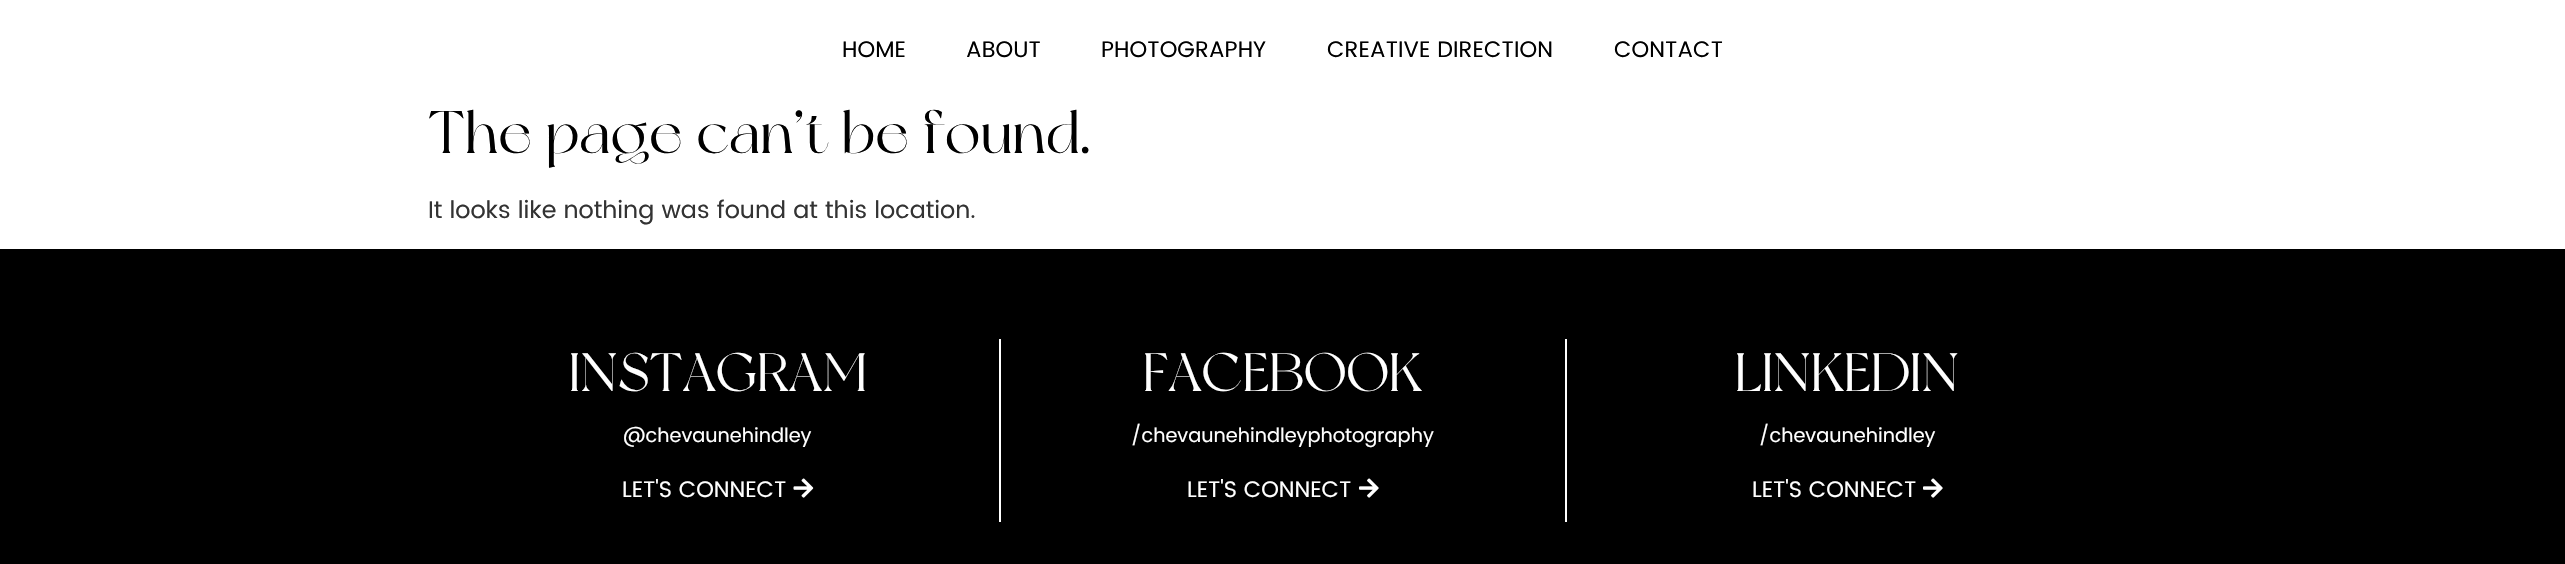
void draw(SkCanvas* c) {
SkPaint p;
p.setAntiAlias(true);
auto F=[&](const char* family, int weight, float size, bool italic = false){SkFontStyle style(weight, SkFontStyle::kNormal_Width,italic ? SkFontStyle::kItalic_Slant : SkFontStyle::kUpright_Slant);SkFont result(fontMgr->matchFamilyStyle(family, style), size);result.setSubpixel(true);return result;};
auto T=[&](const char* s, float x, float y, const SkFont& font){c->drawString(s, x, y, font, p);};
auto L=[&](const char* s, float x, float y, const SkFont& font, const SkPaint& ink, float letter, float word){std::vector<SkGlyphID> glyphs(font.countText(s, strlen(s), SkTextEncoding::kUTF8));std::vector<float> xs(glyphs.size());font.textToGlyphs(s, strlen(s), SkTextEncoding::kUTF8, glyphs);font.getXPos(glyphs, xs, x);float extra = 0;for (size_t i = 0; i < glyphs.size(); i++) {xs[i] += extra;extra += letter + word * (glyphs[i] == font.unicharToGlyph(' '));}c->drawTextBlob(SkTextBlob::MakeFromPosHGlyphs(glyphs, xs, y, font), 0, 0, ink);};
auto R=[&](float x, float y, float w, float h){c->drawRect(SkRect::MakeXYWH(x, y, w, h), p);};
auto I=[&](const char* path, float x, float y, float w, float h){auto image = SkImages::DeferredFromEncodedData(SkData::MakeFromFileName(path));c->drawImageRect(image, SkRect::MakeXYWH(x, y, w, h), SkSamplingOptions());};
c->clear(0xffffffff);
auto f1 = F("Poppins",400,22.5);
p.setColor(0xff000000);
L("HOME",842,57,f1,p,.1,0);
L("ABOUT",966,57,f1,p,.1,0);
L("PHOTOGRAPHY",1101,57,f1,p,.1,0);
L("CREATIVE DIRECTION",1327,57,f1,p,.1,0);
L("CONTACT",1614,57,f1,p,.1,0);
auto f2 = F("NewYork",400,60);
T("The page can’t be found.",428,153,f2);
auto f3 = F("Poppins",400,24);
p.setColor(0xff333333);
T("It looks like nothing was found at this location.",428,218,f3);
p.setColor(0xff000000);
R(0,249,2565,315);
p.setColor(0xffffffff);
R(999,339,2,183);
auto f4 = F("NewYork",400,54);
T("INSTAGRAM",569,391,f4);
auto f5 = F("Poppins",400,19.5);
T("@chevaunehindley",623,442,f5);
T("LET'S CONNECT",622,497,f1);
I("1.png",793,478,21,20);
T("FACEBOOK",1143,391,f4);
T("/chevaunehindleyphotography",1131,442,f5);
T("LET'S CONNECT",1187,497,f1);
I("2.png",1359,478,20,20);
R(1565,339,2,183);
T("LINKEDIN",1735,391,f4);
T("/chevaunehindley",1759,442,f5);
T("LET'S CONNECT",1752,497,f1);
I("2.png",1923,478,20,20);
}
